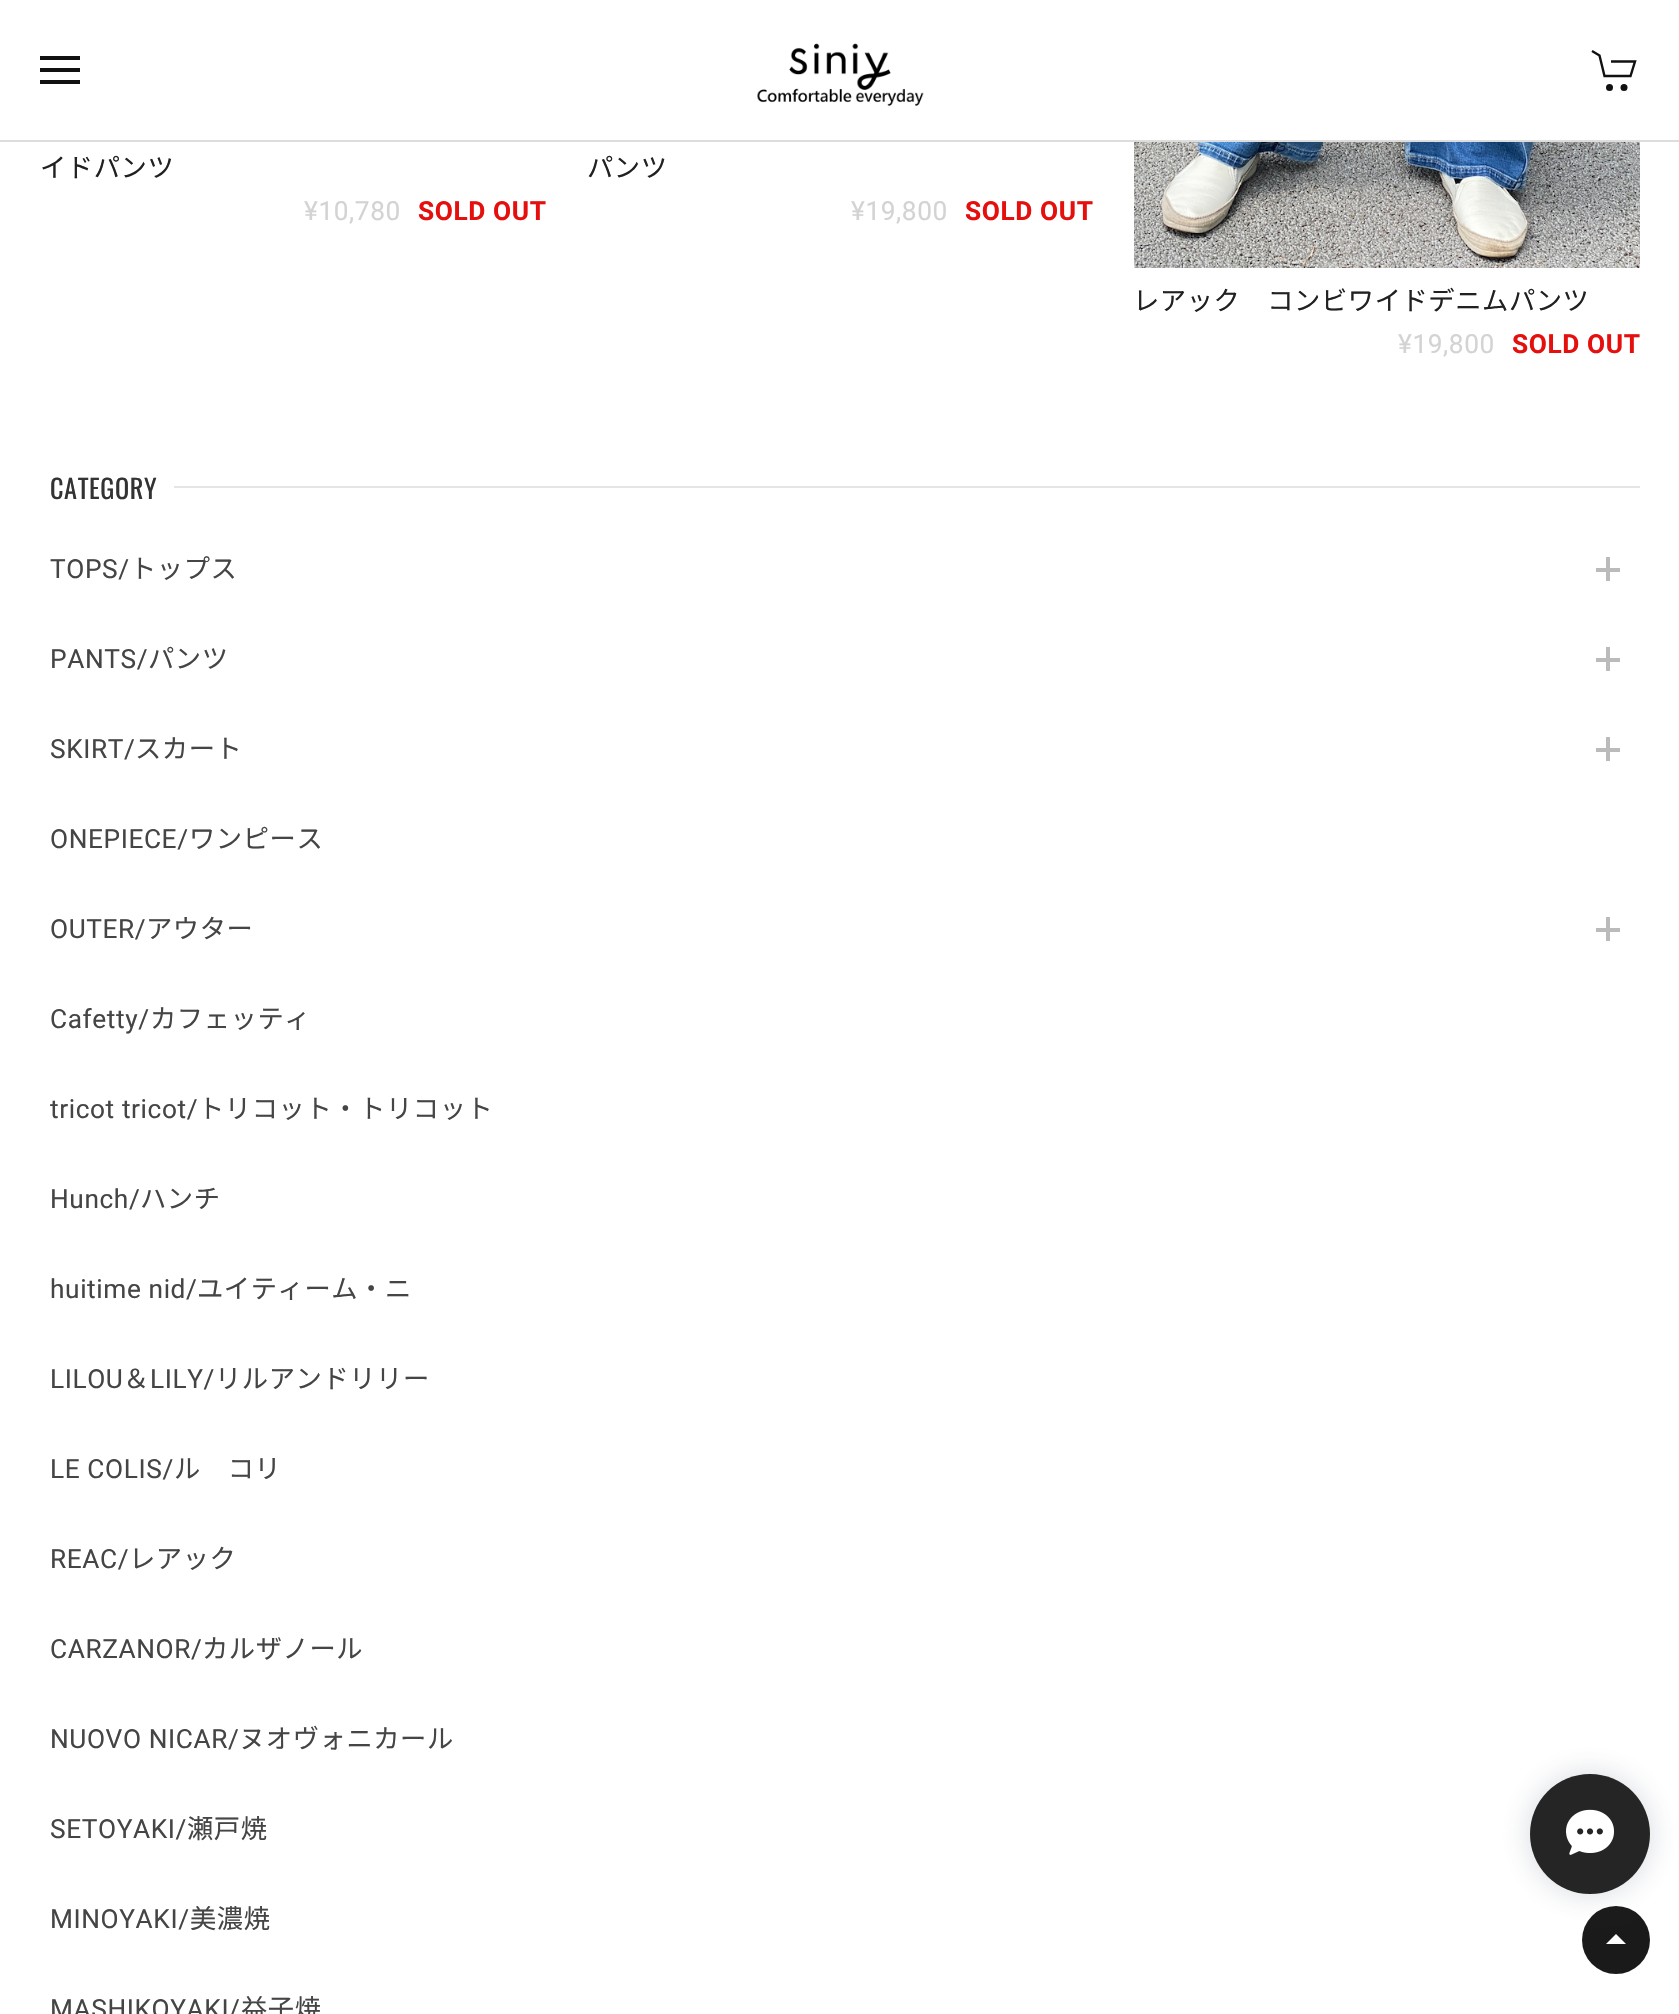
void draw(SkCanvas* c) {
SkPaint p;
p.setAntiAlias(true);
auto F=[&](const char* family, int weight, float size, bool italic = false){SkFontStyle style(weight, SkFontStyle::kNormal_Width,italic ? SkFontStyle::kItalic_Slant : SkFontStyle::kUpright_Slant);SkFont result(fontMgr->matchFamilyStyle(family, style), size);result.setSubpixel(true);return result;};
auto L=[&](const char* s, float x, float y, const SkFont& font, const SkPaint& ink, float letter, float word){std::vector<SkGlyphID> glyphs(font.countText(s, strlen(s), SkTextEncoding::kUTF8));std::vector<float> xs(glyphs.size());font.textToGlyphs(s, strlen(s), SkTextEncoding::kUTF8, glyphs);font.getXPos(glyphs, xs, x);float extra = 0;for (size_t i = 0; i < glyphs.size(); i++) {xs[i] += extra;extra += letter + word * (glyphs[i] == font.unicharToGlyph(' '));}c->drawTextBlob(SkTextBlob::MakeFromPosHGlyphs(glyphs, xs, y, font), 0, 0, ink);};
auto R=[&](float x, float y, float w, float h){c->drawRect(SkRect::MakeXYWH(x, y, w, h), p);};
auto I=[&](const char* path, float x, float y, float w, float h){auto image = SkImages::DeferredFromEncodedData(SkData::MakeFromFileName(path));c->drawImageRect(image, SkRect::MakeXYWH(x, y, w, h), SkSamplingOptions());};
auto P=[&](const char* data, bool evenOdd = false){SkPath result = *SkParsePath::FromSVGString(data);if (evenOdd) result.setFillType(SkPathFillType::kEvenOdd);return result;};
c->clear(0xffffffff);
p.setColor(0xffdddddd);
R(0,140,1679,2);
p.setColor(0xff111111);
R(40,68,40,4);
R(40,56,40,4);
R(40,80,40,4);
I("1.png",757,43,167,63);
p.setStroke(true);
p.setStrokeWidth(2.4);
c->drawPath(P("M1592 51l7.5 4.5l5 20.5h26l4.5-14.5h-24"),p);
p.setStroke(false);
c->drawCircle(1609.5,87.5,3.5,p);
c->drawCircle(1624,87.5,3.5,p);
auto f1 = F("Noto Sans JP",400,26.25);
p.setColor(0xff212121);
L("イドパンツ",40,177,f1,p,.6,0);
auto f2 = F("Roboto",400,26.25);
p.setColor(0xffd3d3d3);
L("¥10,780",304,220,f2,p,.6,0);
auto f3 = F("Roboto",700,26.25);
p.setColor(0xffe50f0d);
L("SOLD OUT",418,220,f3,p,.6,0);
p.setColor(0xff212121);
L("パンツ",587,177,f1,p,.6,0);
p.setColor(0xffd3d3d3);
L("¥19,800",851,220,f2,p,.6,0);
p.setColor(0xffe50f0d);
L("SOLD OUT",965,220,f3,p,.6,0);
I("2.png",1134,142,506,126);
p.setColor(0xff212121);
L("レアック　コンビワイドデニムパンツ",1133,310,f1,p,.6,0);
p.setColor(0xffd3d3d3);
L("¥19,800",1398,353,f2,p,.6,0);
p.setColor(0xffe50f0d);
L("SOLD OUT",1512,353,f3,p,.6,0);
auto f4 = F("Oswald",400,26.25);
p.setColor(0xff333333);
L("CATEGORY",50,499,f4,p,.6,0);
p.setColor(0xffe5e5e5);
R(174,486,1466,2);
p.setColor(0xff454545);
L("TOPS/",50,578,f2,p,.6,0);
L("トップス",130,578,f1,p,.6,0);
p.setColor(0xffbbbbbb);
R(1596,568,24,4);
R(1606,557,4,24);
p.setColor(0xff454545);
L("PANTS/",50,668,f2,p,.6,0);
L("パンツ",148,668,f1,p,.6,0);
p.setColor(0xffbbbbbb);
R(1596,658,24,4);
R(1606,647,4,24);
p.setColor(0xff454545);
L("SKIRT/",50,758,f2,p,.6,0);
L("スカート",135,758,f1,p,.6,0);
p.setColor(0xffbbbbbb);
R(1596,748,24,4);
R(1606,737,4,24);
p.setColor(0xff454545);
L("ONEPIECE/",50,848,f2,p,.6,0);
L("ワンピース",189,848,f1,p,.6,0);
L("OUTER/",50,938,f2,p,.6,0);
L("アウター",146,938,f1,p,.6,0);
p.setColor(0xffbbbbbb);
R(1596,928,24,4);
R(1606,917,4,24);
p.setColor(0xff454545);
L("Cafetty/",50,1028,f2,p,.6,0);
L("カフェッティ",150,1028,f1,p,.6,0);
L("tricot tricot/",50,1118,f2,p,.6,0);
L("トリコット・トリコット",198,1118,f1,p,.6,0);
L("Hunch/",50,1208,f2,p,.6,0);
L("ハンチ",140,1208,f1,p,.6,0);
L("huitime nid/",50,1298,f2,p,.6,0);
L("ユイティーム・ニ",197,1298,f1,p,.6,0);
L("LILOU",50,1388,f2,p,.6,0);
L("＆",123,1388,f1,p,.6,0);
L("LILY/",150,1388,f2,p,.6,0);
L("リルアンドリリー",215,1388,f1,p,.6,0);
L("LE COLIS/",50,1478,f2,p,.6,0);
L("ル　コリ",174,1478,f1,p,.6,0);
L("REAC/",50,1568,f2,p,.6,0);
L("レアック",129,1568,f1,p,.6,0);
L("CARZANOR/",50,1658,f2,p,.6,0);
L("カルザノール",202,1658,f1,p,.6,0);
L("NUOVO NICAR/",50,1748,f2,p,.6,0);
L("ヌオヴォニカール",239,1748,f1,p,.6,0);
L("SETOYAKI/",50,1838,f2,p,.6,0);
L("瀬戸焼",187,1838,f1,p,.6,0);
L("MINOYAKI/",50,1928,f2,p,.6,0);
L("美濃焼",190,1928,f1,p,.6,0);
L("MASHIKOYAKI/",50,2018,f2,p,.6,0);
L("益子焼",241,2018,f1,p,.6,0);
p.setColor(0xff1a1a1a);
c->drawCircle(1616,1940,34,p);
p.setColor(0xffffffff);
c->drawPath(P("M1606 1944l10-10l10 10z"),p);
p.setColor(0x33334258);
p.setMaskFilter(SkMaskFilter::MakeBlur(kNormal_SkBlurStyle, 15));
c->drawRoundRect(SkRect::MakeXYWH(1530,1774,120,120),60,60,p);
p.setMaskFilter(nullptr);
p.setColor(0xff252525);
c->drawCircle(1590,1834,60,p);
I("3.png",1566,1809,48,46);
}
